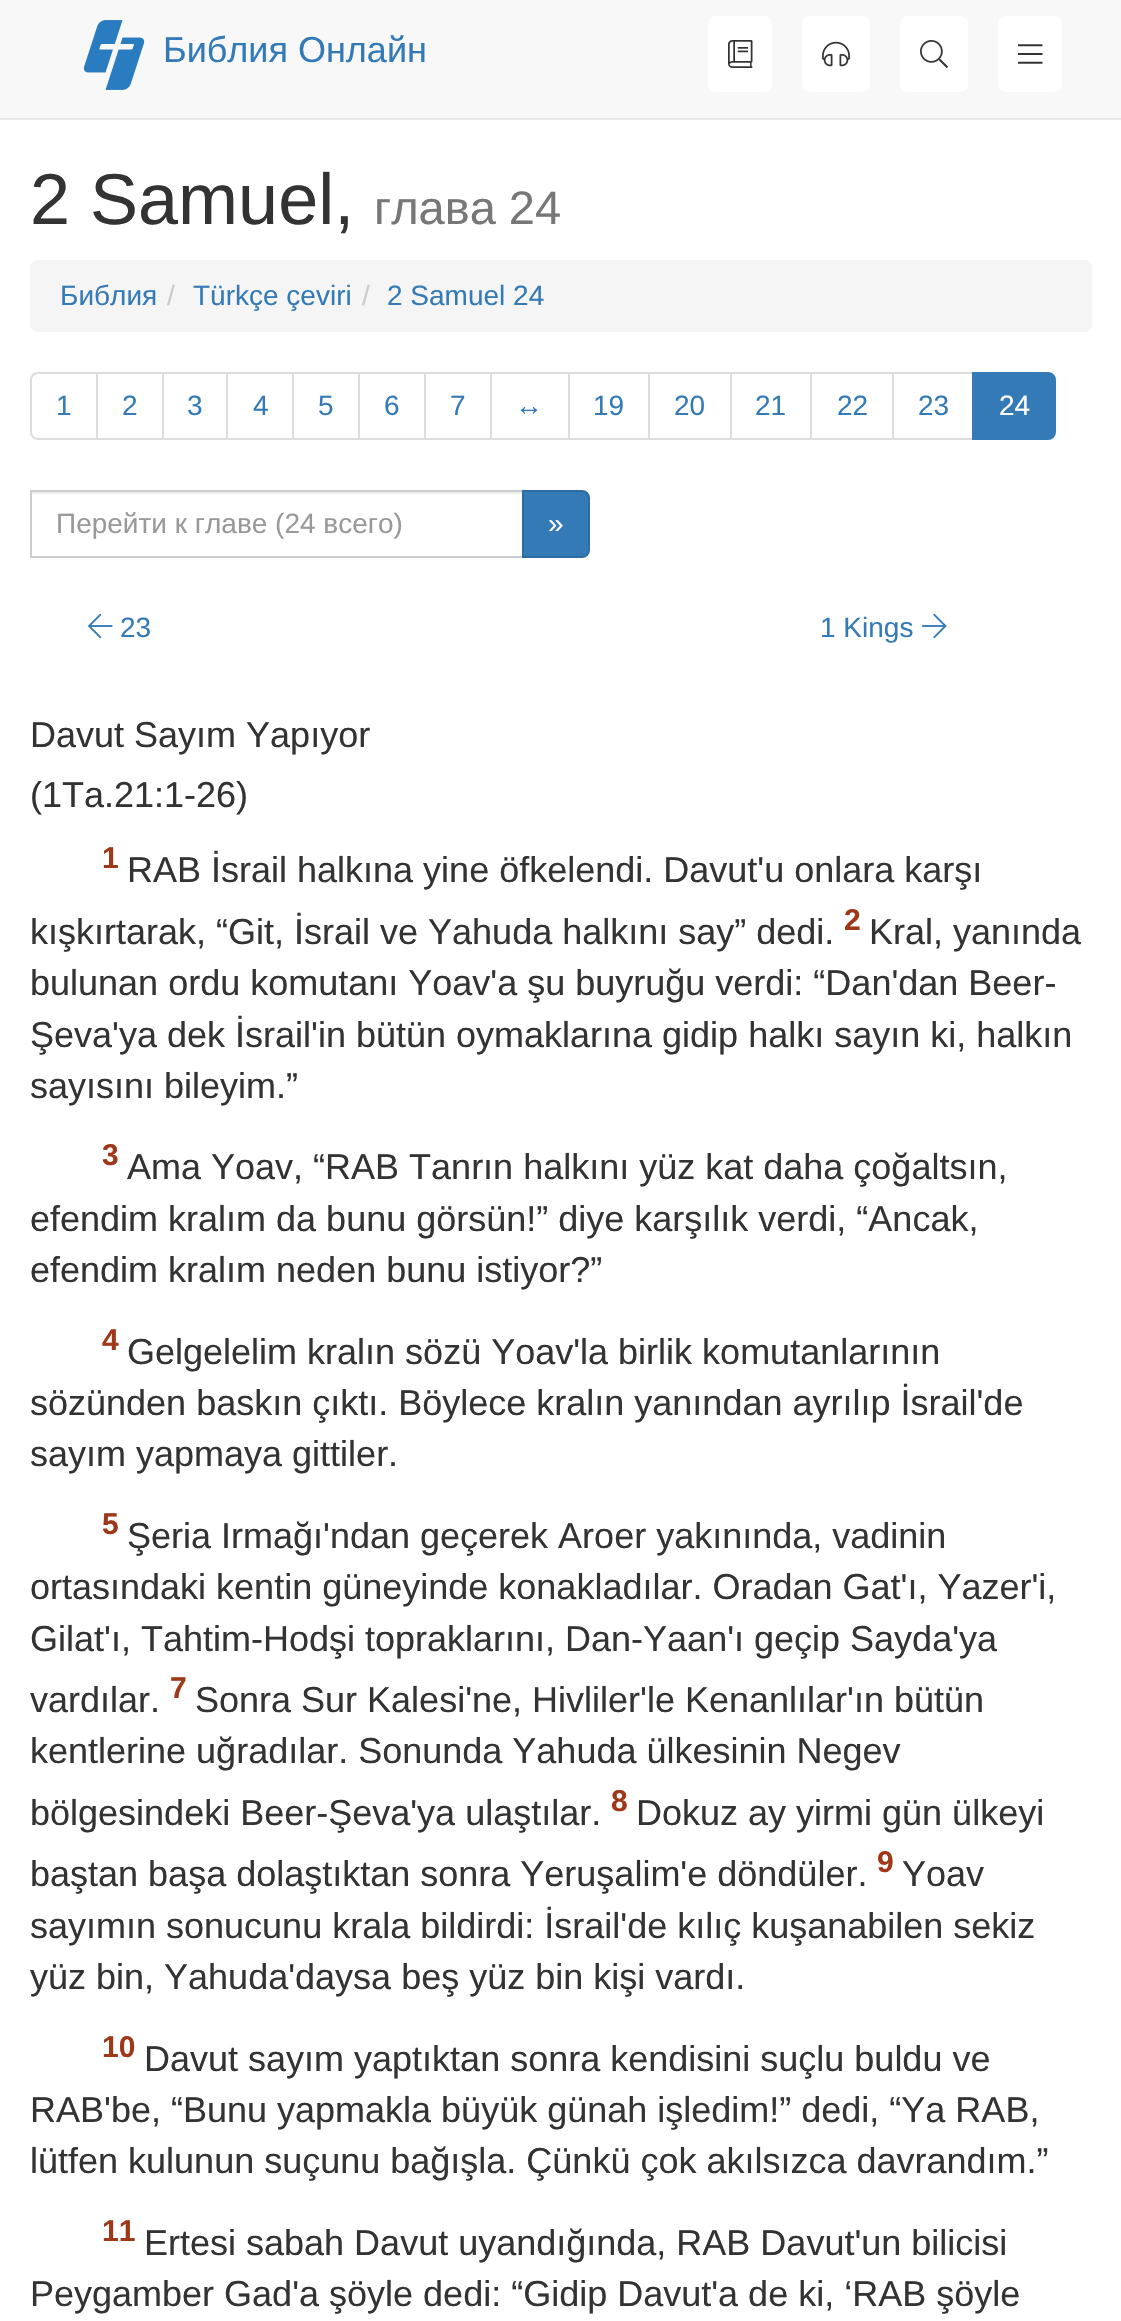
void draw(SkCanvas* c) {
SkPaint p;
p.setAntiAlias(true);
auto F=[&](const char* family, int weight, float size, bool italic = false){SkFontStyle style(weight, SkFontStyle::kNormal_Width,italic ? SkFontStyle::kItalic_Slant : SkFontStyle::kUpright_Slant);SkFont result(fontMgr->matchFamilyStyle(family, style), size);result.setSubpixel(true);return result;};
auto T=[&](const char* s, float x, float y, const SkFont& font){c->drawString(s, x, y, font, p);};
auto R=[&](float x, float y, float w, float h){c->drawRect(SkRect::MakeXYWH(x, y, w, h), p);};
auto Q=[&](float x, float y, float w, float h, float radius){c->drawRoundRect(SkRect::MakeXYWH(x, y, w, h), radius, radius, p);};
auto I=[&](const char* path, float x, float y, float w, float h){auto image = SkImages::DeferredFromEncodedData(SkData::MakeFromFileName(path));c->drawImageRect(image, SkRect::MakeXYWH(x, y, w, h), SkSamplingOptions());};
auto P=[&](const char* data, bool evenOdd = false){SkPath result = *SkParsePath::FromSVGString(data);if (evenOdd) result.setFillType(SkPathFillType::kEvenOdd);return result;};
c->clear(0xffffffff);
p.setColor(0xfff8f8f8);
R(0,0,1121,118);
p.setColor(0xffe7e7e7);
R(0,118,1121,2);
I("1.png",83,20,62,70);
auto f1 = F("Liberation Sans",400,36);
p.setColor(0xff337ab7);
T("Библия Онлайн",163,62,f1);
p.setColor(0xffffffff);
Q(708,16,64,76,8);
I("2.png",728,40,25,28);
Q(802,16,68,76,8);
I("3.png",822,41,28,26);
Q(900,16,68,76,8);
I("4.png",920,40,28,28);
Q(998,16,64,76,8);
I("5.png",1018,44,25,20);
auto f2 = F("Liberation Sans",400,72);
p.setColor(0xff333333);
T("2 Samuel,",30,224,f2);
auto f3 = F("Liberation Sans",400,47);
p.setColor(0xff777777);
T("глава 24",374,224,f3);
p.setColor(0xfff5f5f5);
Q(30,260,1062,72,8);
auto f4 = F("Liberation Sans",400,28);
p.setColor(0xff337ab7);
T("Библия",60,305,f4);
p.setColor(0xffcccccc);
T("/",167,305,f4);
p.setColor(0xff337ab7);
T("Türkçe çeviri",193,305,f4);
p.setColor(0xffcccccc);
T("/",362,305,f4);
p.setColor(0xff337ab7);
T("2 Samuel 24",387,305,f4);
p.setStroke(true);
p.setStrokeWidth(2);
p.setColor(0xffdddddd);
c->drawPath(P("M38 373h59v66h-59c-4 0-7-3-7-7v-52c0-4 3-7 7-7z"),p);
p.setStroke(false);
p.setColor(0xff337ab7);
T("1",56,415,f4);
p.setStroke(true);
p.setColor(0xffdddddd);
c->drawRect(SkRect::MakeXYWH(97,373,66,66),p);
p.setStroke(false);
p.setColor(0xff337ab7);
T("2",122,415,f4);
p.setStroke(true);
p.setColor(0xffdddddd);
c->drawRect(SkRect::MakeXYWH(163,373,64,66),p);
p.setStroke(false);
p.setColor(0xff337ab7);
T("3",187,415,f4);
p.setStroke(true);
p.setColor(0xffdddddd);
c->drawRect(SkRect::MakeXYWH(227,373,66,66),p);
p.setStroke(false);
p.setColor(0xff337ab7);
T("4",253,415,f4);
p.setStroke(true);
p.setColor(0xffdddddd);
c->drawRect(SkRect::MakeXYWH(293,373,66,66),p);
p.setStroke(false);
p.setColor(0xff337ab7);
T("5",318,415,f4);
p.setStroke(true);
p.setColor(0xffdddddd);
c->drawRect(SkRect::MakeXYWH(359,373,66,66),p);
p.setStroke(false);
p.setColor(0xff337ab7);
T("6",384,415,f4);
p.setStroke(true);
p.setColor(0xffdddddd);
c->drawRect(SkRect::MakeXYWH(425,373,66,66),p);
p.setStroke(false);
p.setColor(0xff337ab7);
T("7",450,415,f4);
p.setStroke(true);
p.setColor(0xffdddddd);
c->drawRect(SkRect::MakeXYWH(491,373,78,66),p);
p.setStroke(false);
p.setColor(0xff337ab7);
T("↔",515,415,f4);
p.setStroke(true);
p.setColor(0xffdddddd);
c->drawRect(SkRect::MakeXYWH(569,373,80,66),p);
p.setStroke(false);
p.setColor(0xff337ab7);
T("19",593,415,f4);
p.setStroke(true);
p.setColor(0xffdddddd);
c->drawRect(SkRect::MakeXYWH(649,373,82,66),p);
p.setStroke(false);
p.setColor(0xff337ab7);
T("20",674,415,f4);
p.setStroke(true);
p.setColor(0xffdddddd);
c->drawRect(SkRect::MakeXYWH(731,373,80,66),p);
p.setStroke(false);
p.setColor(0xff337ab7);
T("21",755,415,f4);
p.setStroke(true);
p.setColor(0xffdddddd);
c->drawRect(SkRect::MakeXYWH(811,373,82,66),p);
p.setStroke(false);
p.setColor(0xff337ab7);
T("22",837,415,f4);
p.setStroke(true);
p.setColor(0xffdddddd);
c->drawRect(SkRect::MakeXYWH(893,373,80,66),p);
p.setStroke(false);
p.setColor(0xff337ab7);
T("23",918,415,f4);
c->drawPath(P("M973 373h75c4 0 7 3 7 7v52c0 4-3 7-7 7h-75z"),p);
p.setStroke(true);
c->drawPath(P("M973 373h75c4 0 7 3 7 7v52c0 4-3 7-7 7h-75z"),p);
p.setStroke(false);
p.setColor(0xffffffff);
T("24",999,415,f4);
p.setColor(0xffececec);
R(32,492,490,2);
p.setStroke(true);
p.setColor(0xffcccccc);
c->drawRect(SkRect::MakeXYWH(31,491,492,66),p);
p.setStroke(false);
p.setColor(0xff999999);
T("Перейти к главе (24 всего)",56,533,f4);
p.setColor(0xff337ab7);
c->drawPath(P("M523 491h59c4 0 7 3 7 7v52c0 4-3 7-7 7h-59z"),p);
p.setStroke(true);
p.setColor(0xff2e6da4);
c->drawPath(P("M523 491h59c4 0 7 3 7 7v52c0 4-3 7-7 7h-59z"),p);
p.setStroke(false);
p.setColor(0xffffffff);
T("»",548,533,f4);
I("6.png",88,613,25,26);
p.setColor(0xff337ab7);
T("23",120,637,f4);
T("1 Kings",820,637,f4);
I("7.png",922,613,25,26);
p.setColor(0xff333333);
T("Davut Sayım Yapıyor",30,747,f1);
T("(1Ta.21:1-26)",30,807,f1);
auto f5 = F("Liberation Sans",700,30);
p.setColor(0xff9f3819);
T("1",102,868,f5);
p.setColor(0xff333333);
T("RAB İsrail halkına yine öfkelendi. Davut'u onlara karşı",127,882,f1);
T("kışkırtarak, “Git, İsrail ve Yahuda halkını say” dedi.",30,944,f1);
p.setColor(0xff9f3819);
T("2",844,930,f5);
p.setColor(0xff333333);
T("Kral, yanında",869,944,f1);
T("bulunan ordu komutanı Yoav'a şu buyruğu verdi: “Dan'dan Beer-",30,995,f1);
T("Şeva'ya dek İsrail'in bütün oymaklarına gidip halkı sayın ki, halkın",30,1047,f1);
T("sayısını bileyim.”",30,1098,f1);
p.setColor(0xff9f3819);
T("3",102,1165,f5);
p.setColor(0xff333333);
T("Ama Yoav, “RAB Tanrın halkını yüz kat daha çoğaltsın,",127,1179,f1);
T("efendim kralım da bunu görsün!” diye karşılık verdi, “Ancak,",30,1231,f1);
T("efendim kralım neden bunu istiyor?”",30,1282,f1);
p.setColor(0xff9f3819);
T("4",102,1350,f5);
p.setColor(0xff333333);
T("Gelgelelim kralın sözü Yoav'la birlik komutanlarının",127,1364,f1);
T("sözünden baskın çıktı. Böylece kralın yanından ayrılıp İsrail'de",30,1415,f1);
T("sayım yapmaya gittiler.",30,1466,f1);
p.setColor(0xff9f3819);
T("5",102,1534,f5);
p.setColor(0xff333333);
T("Şeria Irmağı'ndan geçerek Aroer yakınında, vadinin",127,1548,f1);
T("ortasındaki kentin güneyinde konakladılar. Oradan Gat'ı, Yazer'i,",30,1599,f1);
T("Gilat'ı, Tahtim-Hodşi topraklarını, Dan-Yaan'ı geçip Sayda'ya",30,1651,f1);
T("vardılar.",30,1712,f1);
p.setColor(0xff9f3819);
T("7",170,1698,f5);
p.setColor(0xff333333);
T("Sonra Sur Kalesi'ne, Hivliler'le Kenanlılar'ın bütün",195,1712,f1);
T("kentlerine uğradılar. Sonunda Yahuda ülkesinin Negev",30,1763,f1);
T("bölgesindeki Beer-Şeva'ya ulaştılar.",30,1825,f1);
p.setColor(0xff9f3819);
T("8",611,1811,f5);
p.setColor(0xff333333);
T("Dokuz ay yirmi gün ülkeyi",636,1825,f1);
T("baştan başa dolaştıktan sonra Yeruşalim'e döndüler.",30,1886,f1);
p.setColor(0xff9f3819);
T("9",877,1872,f5);
p.setColor(0xff333333);
T("Yoav",902,1886,f1);
T("sayımın sonucunu krala bildirdi: İsrail'de kılıç kuşanabilen sekiz",30,1938,f1);
T("yüz bin, Yahuda'daysa beş yüz bin kişi vardı.",30,1989,f1);
p.setColor(0xff9f3819);
T("10",102,2057,f5);
p.setColor(0xff333333);
T("Davut sayım yaptıktan sonra kendisini suçlu buldu ve",144,2071,f1);
T("RAB'be, “Bunu yapmakla büyük günah işledim!” dedi, “Ya RAB,",30,2122,f1);
T("lütfen kulunun suçunu bağışla. Çünkü çok akılsızca davrandım.”",30,2173,f1);
p.setColor(0xff9f3819);
T("11",102,2241,f5);
p.setColor(0xff333333);
T("Ertesi sabah Davut uyandığında, RAB Davut'un bilicisi",144,2255,f1);
T("Peygamber Gad'a şöyle dedi: “Gidip Davut'a de ki, ‘RAB şöyle",30,2306,f1);
}
